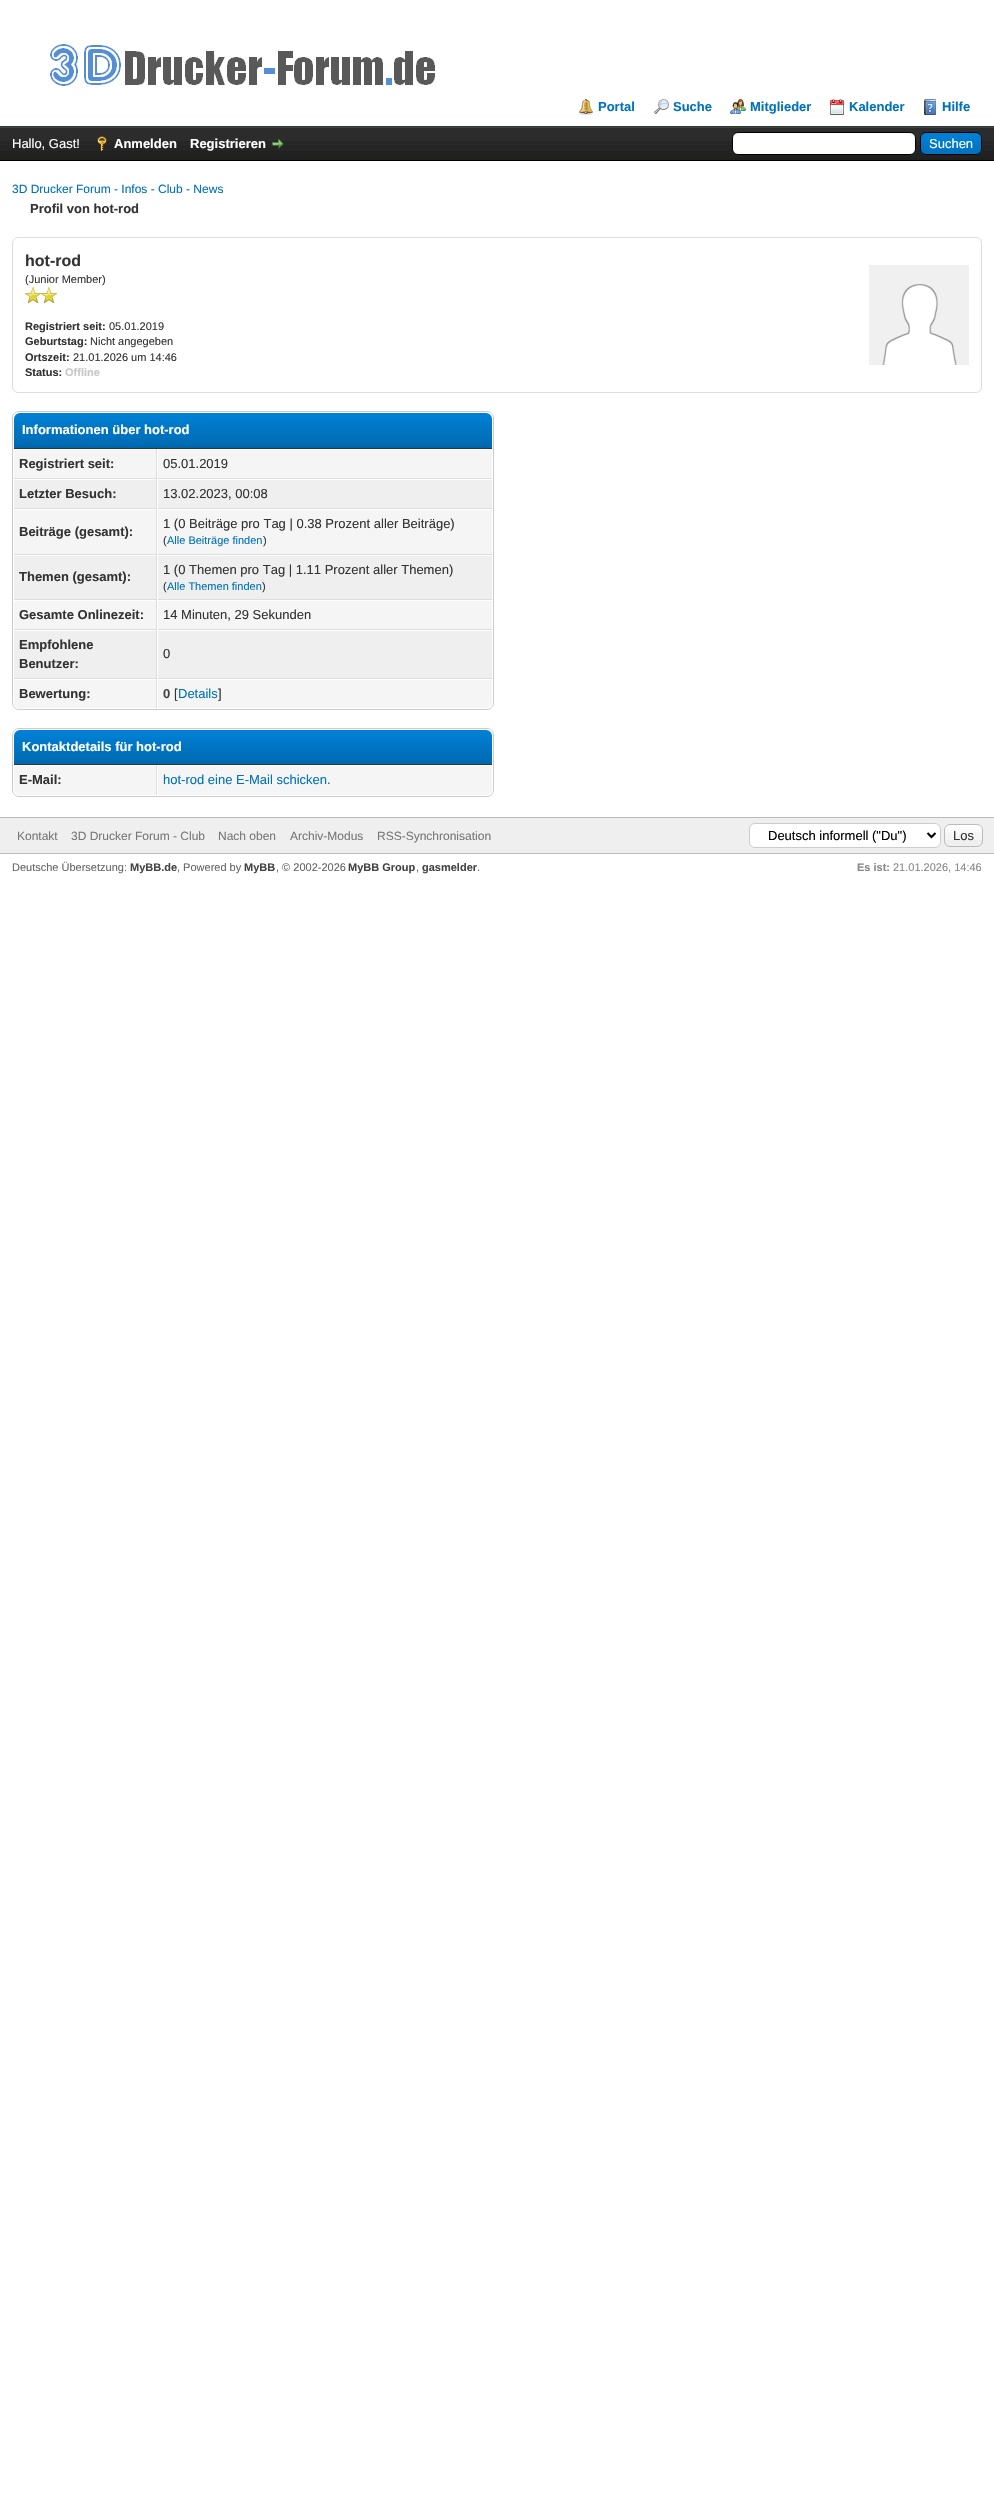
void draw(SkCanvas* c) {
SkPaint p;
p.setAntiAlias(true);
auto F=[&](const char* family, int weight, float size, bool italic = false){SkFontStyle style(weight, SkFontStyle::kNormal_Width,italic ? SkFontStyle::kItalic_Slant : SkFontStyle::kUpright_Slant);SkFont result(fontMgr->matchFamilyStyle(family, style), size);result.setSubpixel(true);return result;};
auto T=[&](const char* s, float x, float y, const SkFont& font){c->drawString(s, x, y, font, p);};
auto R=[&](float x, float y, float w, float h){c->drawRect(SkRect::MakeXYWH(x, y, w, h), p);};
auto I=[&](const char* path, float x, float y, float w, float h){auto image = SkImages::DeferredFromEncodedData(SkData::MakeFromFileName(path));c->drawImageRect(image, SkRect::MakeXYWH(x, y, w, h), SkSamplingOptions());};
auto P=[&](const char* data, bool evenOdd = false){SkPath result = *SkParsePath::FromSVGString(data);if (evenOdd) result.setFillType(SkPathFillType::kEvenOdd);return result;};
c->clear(0xffffffff);
p.setColor(0xff263c30);
R(0,126,994,1);
I("1.png",50,44,385,42);
I("2.png",579,99,14,16);
auto f1 = F("Liberation Sans",700,13);
p.setColor(0xff0072bc);
T("Portal",598,111,f1);
I("3.png",654,99,15,15);
T("Suche",673,111,f1);
I("4.png",730,99,16,15);
T("Mitglieder",750,111,f1);
I("5.png",830,99,14,16);
T("Kalender",849,111,f1);
I("6.png",924,99,12,16);
T("Hilfe",942,111,f1);
I("7.png",0,128,994,32);
p.setColor(0xff444444);
R(0,127,994,1);
p.setColor(0xff000000);
R(0,160,994,1);
auto f2 = F("Liberation Sans",400,13);
p.setColor(0xffffffff);
T("Hallo, Gast!",12,148,f2);
I("8.png",97,136,10,15);
T("Anmelden",114,148,f1);
T("Registrieren",190,148,f1);
I("9.png",272,139,12,10);
c->drawRoundRect(SkRect::MakeXYWH(732.5,132.5,183,22),5.5,5.5,p);
p.setStroke(true);
p.setStrokeWidth(1);
p.setColor(0xff000000);
c->drawRoundRect(SkRect::MakeXYWH(732.5,132.5,183,22),5.5,5.5,p);
I("10.png",920,133,62,22);
c->drawRoundRect(SkRect::MakeXYWH(920.5,132.5,61,22),5.5,5.5,p);
p.setStroke(false);
p.setColor(0xffffffff);
T("Suchen",929,148,f2);
auto f3 = F("Liberation Sans",400,12);
p.setColor(0xff0072bc);
T("3D Drucker Forum - Infos - Club - News",12,193,f3);
p.setColor(0xff333333);
T("Profil von hot-rod",30,213,f1);
p.setStroke(true);
p.setColor(0xffdddddd);
c->drawRoundRect(SkRect::MakeXYWH(12.5,237.5,969,155),5.5,5.5,p);
auto f4 = F("Liberation Sans",700,16);
p.setStroke(false);
p.setColor(0xff333333);
T("hot-rod",25,266,f4);
auto f5 = F("Liberation Sans",400,11);
T("(Junior Member)",25,283,f5);
I("11.png",25,287,16,16);
I("11.png",41,287,16,16);
auto f6 = F("Liberation Sans",700,11);
T("Registriert seit:",25,330,f6);
T("05.01.2019",109,330,f5);
T("Geburtstag:",25,345,f6);
T("Nicht angegeben",90,345,f5);
T("Ortszeit:",25,361,f6);
T("21.01.2026 um 14:46",73,361,f5);
T("Status:",25,376,f6);
p.setColor(0xffc7c7c7);
T("Offline",65,376,f6);
I("12.png",869,265,100,100);
p.setStroke(true);
p.setColor(0xffcccccc);
c->drawRoundRect(SkRect::MakeXYWH(12.5,411.5,481,298),6.5,6.5,p);
I("13.png",14,413,478,35);
p.setStroke(false);
p.setColor(0xff263c30);
R(14,448,478,1);
p.setColor(0xffffffff);
T("Informationen über hot-rod",22,434,f1);
p.setColor(0xfff5f5f5);
R(14,450,142,28);
p.setColor(0xffdddddd);
R(156,449,1,230);
R(14,478,478,1);
p.setColor(0xff333333);
T("Registriert seit:",19,468,f1);
p.setColor(0xfff5f5f5);
R(158,450,334,28);
p.setColor(0xffffffff);
R(157,478,1,1);
p.setColor(0xff333333);
T("05.01.2019",163,468,f2);
p.setColor(0xffefefef);
R(14,480,142,28);
p.setColor(0xffdddddd);
R(14,508,478,1);
p.setColor(0xff333333);
T("Letzter Besuch:",19,498,f1);
p.setColor(0xffefefef);
R(158,480,334,28);
p.setColor(0xffffffff);
R(157,508,1,1);
p.setColor(0xff333333);
T("13.02.2023, 00:08",163,498,f2);
p.setColor(0xfff5f5f5);
R(14,510,142,44);
p.setColor(0xffdddddd);
R(14,554,478,1);
p.setColor(0xff333333);
T("Beiträge (gesamt):",19,536,f1);
p.setColor(0xfff5f5f5);
R(158,510,334,44);
p.setColor(0xffffffff);
R(157,554,1,1);
p.setColor(0xff333333);
T("1 (0 Beiträge pro Tag | 0.38 Prozent aller Beiträge)",163,528,f2);
T("(",163,544,f5);
p.setColor(0xff0072bc);
T("Alle Beiträge finden",167,544,f5);
p.setColor(0xff333333);
T(")",263,544,f5);
p.setColor(0xffefefef);
R(14,556,142,43);
p.setColor(0xffdddddd);
R(14,599,478,1);
p.setColor(0xff333333);
T("Themen (gesamt):",19,581,f1);
p.setColor(0xffefefef);
R(158,556,334,43);
p.setColor(0xffffffff);
R(157,599,1,1);
p.setColor(0xff333333);
T("1 (0 Themen pro Tag | 1.11 Prozent aller Themen)",163,574,f2);
T("(",163,590,f5);
p.setColor(0xff0072bc);
T("Alle Themen finden",167,590,f5);
p.setColor(0xff333333);
T(")",262,590,f5);
p.setColor(0xfff5f5f5);
R(14,601,142,28);
p.setColor(0xffdddddd);
R(14,629,478,1);
p.setColor(0xff333333);
T("Gesamte Onlinezeit:",19,619,f1);
p.setColor(0xfff5f5f5);
R(158,601,334,28);
p.setColor(0xffffffff);
R(157,629,1,1);
p.setColor(0xff333333);
T("14 Minuten, 29 Sekunden",163,619,f2);
p.setColor(0xffefefef);
R(14,631,142,47);
p.setColor(0xffdddddd);
R(14,678,478,1);
p.setColor(0xff333333);
T("Empfohlene",19,649,f1);
T("Benutzer:",19,668,f1);
p.setColor(0xffefefef);
R(158,631,334,47);
p.setColor(0xffffffff);
R(157,678,1,1);
p.setColor(0xff333333);
T("0",163,658,f2);
p.setColor(0xfff5f5f5);
c->drawPath(P("M14 679h143v29h-137c-3.5 0-6-2.5-6-6z"),p);
p.setColor(0xffffffff);
c->drawPath(P("M14 679v1h142l1-1z"),p);
p.setColor(0xffdddddd);
c->drawPath(P("M157 679l-1 1v28h1z"),p);
p.setColor(0xff333333);
T("Bewertung:",19,698,f1);
p.setColor(0xfff5f5f5);
c->drawPath(P("M157 679h335v23c0 3.5-2.5 6-6 6h-329z"),p);
p.setColor(0xffffffff);
R(157,679,335,1);
R(157,679,1,29);
p.setColor(0xff444444);
T("0",163,698,f1);
p.setColor(0xff333333);
T("[",174,698,f2);
p.setColor(0xff0072bc);
T("Details",178,698,f2);
p.setColor(0xff333333);
T("]",218,698,f2);
p.setStroke(true);
p.setColor(0xffcccccc);
c->drawRoundRect(SkRect::MakeXYWH(12.5,728.5,481,68),6.5,6.5,p);
I("14.png",14,730,478,34);
p.setStroke(false);
p.setColor(0xff263c30);
R(14,764,478,1);
p.setColor(0xffffffff);
T("Kontaktdetails für hot-rod",22,751,f1);
p.setColor(0xfff5f5f5);
c->drawPath(P("M14 765h143v30h-137c-3.5 0-6-2.5-6-6z"),p);
p.setColor(0xffffffff);
c->drawPath(P("M14 765v1h142l1-1z"),p);
p.setColor(0xffdddddd);
c->drawPath(P("M157 765l-1 1v29h1z"),p);
p.setColor(0xff333333);
T("E-Mail:",19,784,f1);
p.setColor(0xfff5f5f5);
c->drawPath(P("M157 765h335v24c0 3.5-2.5 6-6 6h-329z"),p);
p.setColor(0xffffffff);
R(157,765,335,1);
R(157,765,1,30);
p.setColor(0xff0072bc);
T("hot-rod eine E-Mail schicken.",163,784,f2);
p.setColor(0xffefefef);
R(0,818,994,35);
p.setColor(0xffbbbbbb);
R(0,817,994,1);
R(0,853,994,1);
p.setColor(0xff777777);
T("Kontakt",17,840,f3);
T("3D Drucker Forum - Club",71,840,f3);
T("Nach oben",218,840,f3);
T("Archiv-Modus",290,840,f3);
T("RSS-Synchronisation",377,840,f3);
p.setColor(0xffffffff);
c->drawRoundRect(SkRect::MakeXYWH(749.5,823.5,191,24),5.5,5.5,p);
p.setStroke(true);
p.setColor(0xffcccccc);
c->drawRoundRect(SkRect::MakeXYWH(749.5,823.5,191,24),5.5,5.5,p);
p.setStrokeWidth(2);
p.setColor(0xff000000);
c->drawPath(P("M927.5 833l4 4l4-4"),p);
p.setStroke(false);
T("Deutsch informell (\"Du\")",768,840,f2);
I("15.png",944,825,39,15);
p.setStroke(true);
p.setStrokeWidth(1);
p.setColor(0xffbbbbbb);
c->drawRoundRect(SkRect::MakeXYWH(944.5,824.5,38,22),5.5,5.5,p);
p.setStroke(false);
p.setColor(0xff333333);
T("Los",953,840,f2);
p.setColor(0xff666666);
T("Deutsche Übersetzung:",12,871,f5);
p.setColor(0xff444444);
T("MyBB.de",130,871,f6);
p.setColor(0xff666666);
T(", Powered by",177,871,f5);
p.setColor(0xff444444);
T("MyBB",244,871,f6);
p.setColor(0xff666666);
T(", © 2002-2026",276,871,f5);
p.setColor(0xff444444);
T("MyBB Group",348,871,f6);
p.setColor(0xff666666);
T(",",416,871,f5);
p.setColor(0xff444444);
T("gasmelder",422,871,f6);
p.setColor(0xff666666);
T(".",477,871,f5);
p.setColor(0xff888888);
T("Es ist:",857,871,f6);
T("21.01.2026, 14:46",893,871,f5);
}
